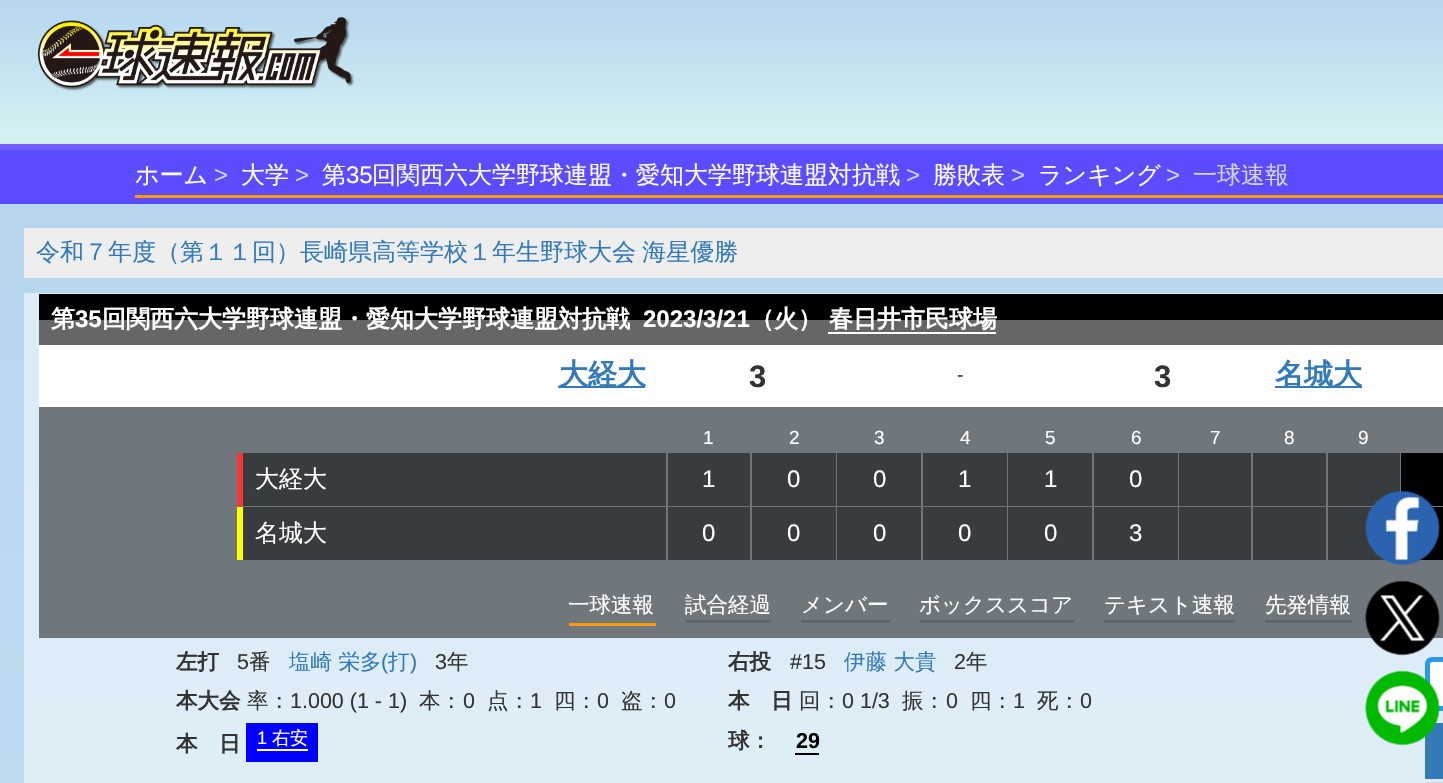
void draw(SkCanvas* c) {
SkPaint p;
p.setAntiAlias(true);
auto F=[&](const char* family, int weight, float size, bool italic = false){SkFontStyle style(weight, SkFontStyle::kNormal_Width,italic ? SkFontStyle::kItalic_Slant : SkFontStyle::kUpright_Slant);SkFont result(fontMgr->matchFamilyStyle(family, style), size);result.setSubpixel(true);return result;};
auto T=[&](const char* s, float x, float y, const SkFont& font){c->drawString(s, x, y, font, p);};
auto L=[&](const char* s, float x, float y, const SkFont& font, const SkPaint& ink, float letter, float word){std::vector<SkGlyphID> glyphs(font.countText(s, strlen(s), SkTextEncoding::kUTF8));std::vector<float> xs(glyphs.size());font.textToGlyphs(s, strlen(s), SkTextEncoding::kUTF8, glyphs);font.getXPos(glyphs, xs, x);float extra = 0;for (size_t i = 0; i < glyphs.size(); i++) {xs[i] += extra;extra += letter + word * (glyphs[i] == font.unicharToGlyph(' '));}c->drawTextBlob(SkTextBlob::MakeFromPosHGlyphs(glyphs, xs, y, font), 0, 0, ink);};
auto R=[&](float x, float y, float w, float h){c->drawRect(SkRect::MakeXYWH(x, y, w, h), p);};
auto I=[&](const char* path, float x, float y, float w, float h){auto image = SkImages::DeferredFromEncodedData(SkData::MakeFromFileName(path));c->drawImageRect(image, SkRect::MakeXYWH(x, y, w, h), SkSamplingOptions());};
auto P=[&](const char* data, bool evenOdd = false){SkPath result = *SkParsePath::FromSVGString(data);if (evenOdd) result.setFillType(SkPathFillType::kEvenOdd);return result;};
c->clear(0xff5b4cff);
{
const SkColor colors[] = {0xffb6d6ef,0xffd5f2f2};
const float stops[] = {0,1};
const SkPoint ends[] = {{960,0}, {960,144}};
p.setShader(SkGradientShader::MakeLinear(ends, colors, stops, 2, SkTileMode::kClamp));
p.setAlpha(255);
}
R(0,0,1443,144);
p.setShader(nullptr);
p.setColor(0xff745dff);
R(0,144,1443,6);
I("1.png",37,17,317,74);
p.setColor(0xffff9900);
R(135,195,1308,3);
auto f1 = F("WenQuanYi Zen Hei",500,24);
p.setColor(0xffffffff);
T("ホーム",135,183,f1);
auto f2 = F("Liberation Sans",400,24);
p.setColor(0xffd3d3d8);
T(">",214,183,f2);
p.setColor(0xffffffff);
T("大学",241,183,f1);
p.setColor(0xffd3d3d8);
T(">",295,183,f2);
p.setColor(0xffffffff);
T("第",322,183,f1);
T("35",346,183,f2);
T("回関西六大学野球連盟・愛知大学野球連盟対抗戦",372,183,f1);
p.setColor(0xffd3d3d8);
T(">",906,183,f2);
p.setColor(0xffffffff);
T("勝敗表",933,183,f1);
p.setColor(0xffd3d3d8);
T(">",1011,183,f2);
p.setColor(0xffffffff);
T("ランキング",1038,183,f1);
p.setColor(0xffd3d3d8);
T(">",1166,183,f2);
T("一球速報",1193,183,f1);
{
const SkColor colors[] = {0xffb6d6ef,0xffd5f2f2};
const float stops[] = {0,1};
const SkPoint ends[] = {{960,204}, {960,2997}};
p.setShader(SkGradientShader::MakeLinear(ends, colors, stops, 2, SkTileMode::kClamp));
p.setAlpha(255);
}
R(0,204,1443,579);
{
const SkColor colors[] = {0xffdbebf7,0xffeaf9f9};
const float stops[] = {0,1};
const SkPoint ends[] = {{960,204}, {960,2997}};
p.setShader(SkGradientShader::MakeLinear(ends, colors, stops, 2, SkTileMode::kClamp));
p.setAlpha(255);
}
R(24,293,1419,490);
p.setShader(nullptr);
p.setColor(0xffeeeeee);
R(24,228,1419,50);
p.setColor(0xff337ab7);
L("令和７年度（第１１回）長崎県高等学校１年生野球大会 海星優勝",36,260,f1,p,0,-1);
p.setColor(0xff6f777c);
R(39,407,1404,231);
p.setColor(0xff000000);
R(39,294,1404,26);
p.setColor(0xff666666);
R(39,320,1404,25);
auto f3 = F("WenQuanYi Zen Hei",700,24);
p.setColor(0xffffffff);
T("第",51,327,f3);
auto f4 = F("Liberation Sans",700,24);
T("35",75,327,f4);
T("回関西六大学野球連盟・愛知大学野球連盟対抗戦",102,327,f3);
T("2023/3/21",643,327,f4);
T("（火）",750,327,f3);
T("春日井市民球場",829,327,f3);
R(828,332,168,2);
R(39,345,1404,62);
p.setColor(0xff337ab7);
R(558,386,87,2);
auto f5 = F("WenQuanYi Zen Hei",700,29);
T("大経大",559,384,f5);
auto f6 = F("Liberation Sans",700,31);
p.setColor(0xff333333);
T("3",749,387,f6);
auto f7 = F("Liberation Sans",400,19);
T("-",957,381,f7);
T("3",1154,387,f6);
p.setColor(0xff337ab7);
R(1275,386,87,2);
T("名城大",1275,384,f5);
p.setColor(0xffffffff);
T("1",703,444,f7);
T("2",789,444,f7);
T("3",874,444,f7);
T("4",960,444,f7);
T("5",1045,444,f7);
T("6",1131,444,f7);
T("7",1210,444,f7);
T("8",1284,444,f7);
T("9",1358,444,f7);
p.setColor(0xff383c3e);
R(243,453,423,53);
p.setColor(0xffff3333);
R(237,453,6,53);
p.setColor(0xffffffff);
T("大経大",255,487,f1);
p.setColor(0xff383c3e);
R(668,453,82,53);
p.setColor(0xffffffff);
T("1",702,487,f2);
p.setColor(0xff383c3e);
R(752,453,84,53);
p.setColor(0xffffffff);
T("0",787,487,f2);
p.setColor(0xff383c3e);
R(837,453,84,53);
p.setColor(0xffffffff);
T("0",873,487,f2);
p.setColor(0xff383c3e);
R(923,453,84,53);
p.setColor(0xffffffff);
T("1",958,487,f2);
p.setColor(0xff383c3e);
R(1008,453,84,53);
p.setColor(0xffffffff);
T("1",1044,487,f2);
p.setColor(0xff383c3e);
R(1094,453,84,53);
p.setColor(0xffffffff);
T("0",1129,487,f2);
p.setColor(0xff383c3e);
R(1179,453,72,53);
R(1253,453,73,53);
R(1328,453,72,53);
p.setColor(0xff000000);
R(1401,453,42,53);
p.setColor(0xff383c3e);
R(243,507,423,53);
p.setColor(0xffffff00);
R(237,507,6,53);
p.setColor(0xffffffff);
T("名城大",255,541,f1);
p.setColor(0xff383c3e);
R(668,507,82,53);
p.setColor(0xffffffff);
T("0",702,541,f2);
p.setColor(0xff383c3e);
R(752,507,84,53);
p.setColor(0xffffffff);
T("0",787,541,f2);
p.setColor(0xff383c3e);
R(837,507,84,53);
p.setColor(0xffffffff);
T("0",873,541,f2);
p.setColor(0xff383c3e);
R(923,507,84,53);
p.setColor(0xffffffff);
T("0",958,541,f2);
p.setColor(0xff383c3e);
R(1008,507,84,53);
p.setColor(0xffffffff);
T("0",1044,541,f2);
p.setColor(0xff383c3e);
R(1094,507,84,53);
p.setColor(0xffffffff);
T("3",1129,541,f2);
p.setColor(0xff383c3e);
R(1179,507,72,53);
R(1253,507,73,53);
R(1328,507,58,53);
p.setColor(0xff000000);
R(1418,507,25,53);
p.setColor(0xffff9900);
R(569,623,87,3);
auto f8 = F("WenQuanYi Zen Hei",500,21.5);
p.setColor(0xffffffff);
T("一球速報",568,612,f8);
T("試合経過",685,612,f8);
p.setColor(0xff5e6569);
R(686,620,85,3);
p.setColor(0xffffffff);
T("メンバー",801,612,f8);
p.setColor(0xff5e6569);
R(801,620,89,3);
p.setColor(0xffffffff);
T("ボックススコア",919,612,f8);
p.setColor(0xff5e6569);
R(920,620,154,3);
p.setColor(0xffffffff);
T("テキスト速報",1104,612,f8);
p.setColor(0xff5e6569);
R(1104,620,131,3);
p.setColor(0xffffffff);
T("先発情報",1265,612,f8);
p.setColor(0xff5e6569);
R(1265,620,87,3);
auto f9 = F("WenQuanYi Zen Hei",700,21.5);
p.setColor(0xff333333);
T("左打",176,669,f9);
auto f10 = F("Liberation Sans",400,21.5);
T("5",237,669,f10);
T("番",249,669,f8);
p.setColor(0xff337ab7);
T("塩崎 栄多",289,669,f8);
T("(",381,669,f10);
T("打",388,669,f8);
T(")",410,669,f10);
p.setColor(0xff333333);
T("3",435,669,f10);
T("年",447,669,f8);
T("本大会",176,708,f9);
T("率：",247,708,f8);
T("1.000 (1 - 1)",290,708,f10);
T("本：",419,708,f8);
T("0",463,708,f10);
T("点：",487,708,f8);
T("1",530,708,f10);
T("四：",554,708,f8);
T("0",597,708,f10);
T("盗：",621,708,f8);
T("0",664,708,f10);
T("本　日",176,751,f9);
p.setColor(0xff0000ff);
R(246,723,72,39);
auto f11 = F("Liberation Sans",400,18);
p.setColor(0xffffffff);
T("1",257,744,f11);
R(257,749,51,2);
auto f12 = F("WenQuanYi Zen Hei",500,18);
T("右安",272,744,f12);
p.setColor(0xff333333);
T("右投",728,669,f9);
T("#15",790,669,f10);
p.setColor(0xff337ab7);
T("伊藤 大貴",844,669,f8);
p.setColor(0xff333333);
T("2",954,669,f10);
T("年",966,669,f8);
T("本　日",728,708,f9);
T("回：",799,708,f8);
T("0 1/3",842,708,f10);
T("振：",902,708,f8);
T("0",946,708,f10);
T("四：",970,708,f8);
T("1",1013,708,f10);
T("死：",1037,708,f8);
T("0",1080,708,f10);
T("球：",728,748,f9);
auto f13 = F("Liberation Sans",700,21.5);
p.setColor(0xff000000);
T("29",796,748,f13);
R(795,753,24,2);
p.setColor(0xffffffff);
c->drawPath(P("M1433 657h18v54h-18c-4.5 0-8-3.5-8-8v-38c0-4.5 3.5-8 8-8z"),p);
p.setColor(0xff2c99ed);
c->drawPath(P("M1432 657h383v54h-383c-4 0-7-3-7-7v-40c0-4 3-7 7-7zm0 5h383v44h-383c-1 0-2-1-2-2v-40c0-1 1-2 2-2z",true),p);
p.setColor(0x80000000);
p.setMaskFilter(SkMaskFilter::MakeBlur(kNormal_SkBlurStyle, 3));
c->drawRect(SkRect::MakeXYWH(1427,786,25,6),p);
p.setMaskFilter(nullptr);
p.setColor(0xff337ab7);
R(1425,723,18,56);
I("2.png",1365,490,75,76);
I("3.png",1365,580,75,76);
I("4.png",1365,670,75,76);
}
